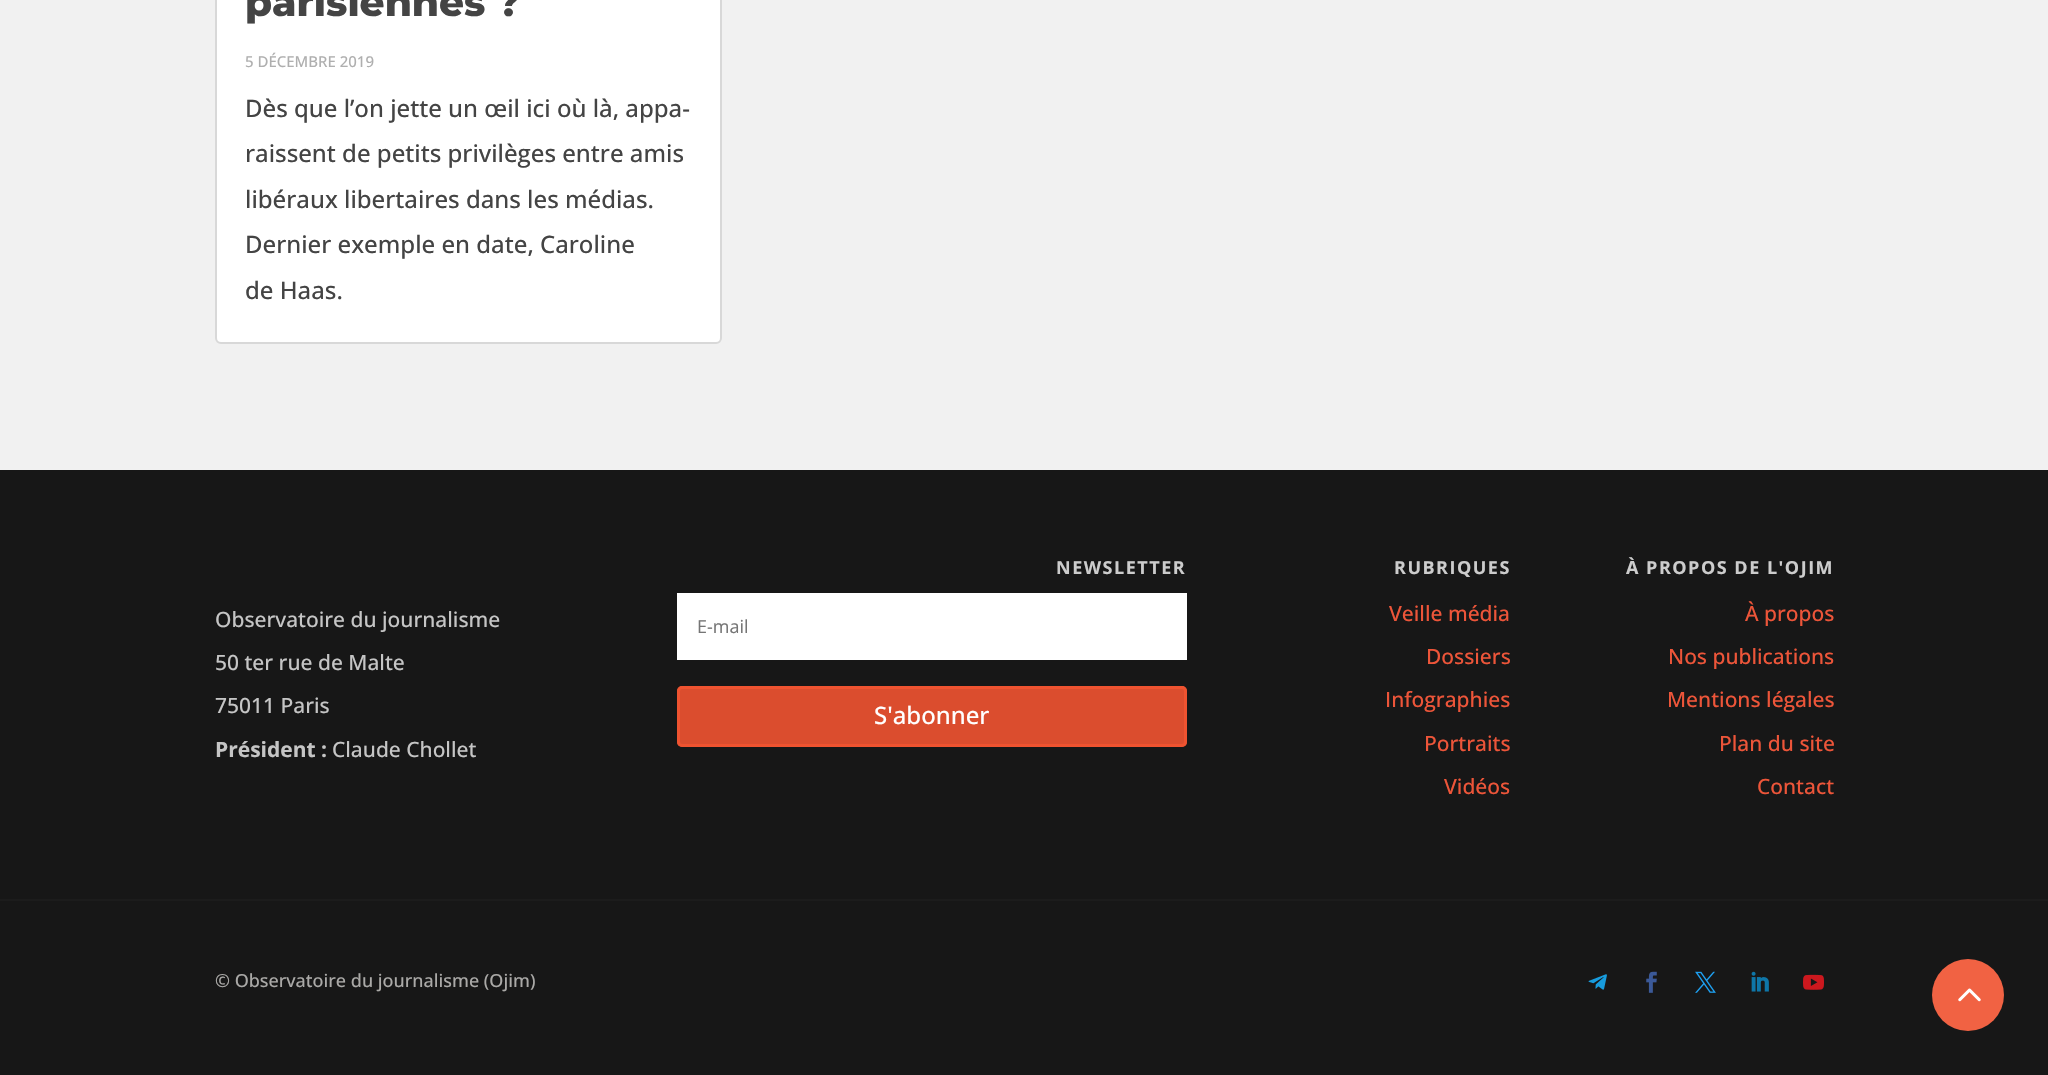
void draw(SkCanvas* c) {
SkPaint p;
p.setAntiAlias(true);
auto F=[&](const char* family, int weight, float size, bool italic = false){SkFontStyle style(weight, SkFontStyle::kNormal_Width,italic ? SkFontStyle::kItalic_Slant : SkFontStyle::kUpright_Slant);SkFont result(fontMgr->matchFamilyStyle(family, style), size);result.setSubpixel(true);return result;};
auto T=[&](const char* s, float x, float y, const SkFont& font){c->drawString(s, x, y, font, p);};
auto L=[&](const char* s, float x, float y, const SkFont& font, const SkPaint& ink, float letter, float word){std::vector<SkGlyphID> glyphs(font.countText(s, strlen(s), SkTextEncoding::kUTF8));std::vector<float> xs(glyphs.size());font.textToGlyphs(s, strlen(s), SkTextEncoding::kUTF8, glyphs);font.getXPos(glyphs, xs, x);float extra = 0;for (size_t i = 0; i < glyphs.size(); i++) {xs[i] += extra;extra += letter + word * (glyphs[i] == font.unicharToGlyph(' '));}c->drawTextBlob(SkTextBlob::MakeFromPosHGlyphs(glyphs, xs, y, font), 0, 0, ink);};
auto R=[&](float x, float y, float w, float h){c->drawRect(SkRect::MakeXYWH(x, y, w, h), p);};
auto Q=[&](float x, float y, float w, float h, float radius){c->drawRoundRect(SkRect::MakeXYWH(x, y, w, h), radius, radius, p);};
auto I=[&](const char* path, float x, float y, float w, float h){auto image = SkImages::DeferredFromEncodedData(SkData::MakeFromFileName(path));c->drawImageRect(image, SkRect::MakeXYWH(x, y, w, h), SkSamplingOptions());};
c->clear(0xfff1f1f1);
p.setColor(0xffffffff);
c->drawRoundRect(SkRect::MakeXYWH(216,-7,505,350),5,5,p);
p.setStroke(true);
p.setStrokeWidth(2);
p.setColor(0xffd8d8d8);
c->drawRoundRect(SkRect::MakeXYWH(216,-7,505,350),5,5,p);
auto f1 = F("Montserrat",800,39);
p.setStroke(false);
p.setColor(0xff444444);
T("parisiennes ?",245,16,f1);
auto f2 = F("Open Sans",500,15);
p.setColor(0xffafafaf);
T("5 DÉCEMBRE 2019",245,67,f2);
auto f3 = F("Open Sans",500,24);
p.setColor(0xff444444);
T("Dès que l’on jette un œil ici où là, appa-",245,117,f3);
T("raissent de petits privilèges entre amis",245,162,f3);
T("libéraux libertaires dans les médias.",245,208,f3);
T("Dernier exemple en date, Caroline",245,253,f3);
T("de Haas.",245,299,f3);
p.setColor(0xff171717);
R(0,470,2048,429);
auto f4 = F("Open Sans",500,21);
p.setColor(0xffc5c5c5);
T("Observatoire du journalisme",215,627,f4);
T("50 ter rue de Malte",215,670,f4);
T("75011 Paris",215,713,f4);
auto f5 = F("Open Sans",700,21);
T("Président :",215,757,f5);
T("Claude Chollet",332,757,f4);
auto f6 = F("Open Sans",700,18);
p.setColor(0xffcccccc);
L("NEWSLETTER",1056,574,f6,p,1.5,0);
p.setColor(0xffffffff);
R(677,593,510,67);
auto f7 = F("Open Sans",400,18);
p.setColor(0xff757575);
T("E-mail",697,633,f7);
p.setColor(0xffdb4d2e);
Q(677,686,510,61,5);
p.setStroke(true);
p.setStrokeWidth(3);
p.setColor(0xe6f15330);
c->drawRoundRect(SkRect::MakeXYWH(678.5,687.5,507,58),3.5,3.5,p);
p.setStroke(false);
p.setColor(0xffffffff);
T("S'abonner",874,724,f3);
p.setColor(0xffcccccc);
L("RUBRIQUES",1394,574,f6,p,1.5,0);
p.setColor(0xffed5539);
T("Veille média",1389,621,f4);
T("Dossiers",1426,664,f4);
T("Infographies",1385,707,f4);
T("Portraits",1424,751,f4);
T("Vidéos",1444,794,f4);
p.setColor(0xffcccccc);
L("À PROPOS DE L'OJIM",1626,574,f6,p,1.5,0);
p.setColor(0xffed5539);
T("À propos",1745,621,f4);
T("Nos publications",1668,664,f4);
T("Mentions légales",1667,707,f4);
T("Plan du site",1719,751,f4);
T("Contact",1757,794,f4);
p.setColor(0xff171717);
R(0,901,2048,174);
p.setColor(0xff1c1c1c);
R(0,899,2048,2);
auto f8 = F("Open Sans",500,18);
p.setColor(0xffaaa9a7);
T("© Observatoire du journalisme (Ojim)",215,987,f8);
I("1.png",1588,974,19,16);
I("2.png",1646,971,11,22);
I("3.png",1695,971,21,22);
I("4.png",1751,971,18,21);
I("5.png",1803,974,21,16);
p.setColor(0xfff16243);
c->drawCircle(1968,995,36,p);
I("6.png",1958,988,23,14);
}
